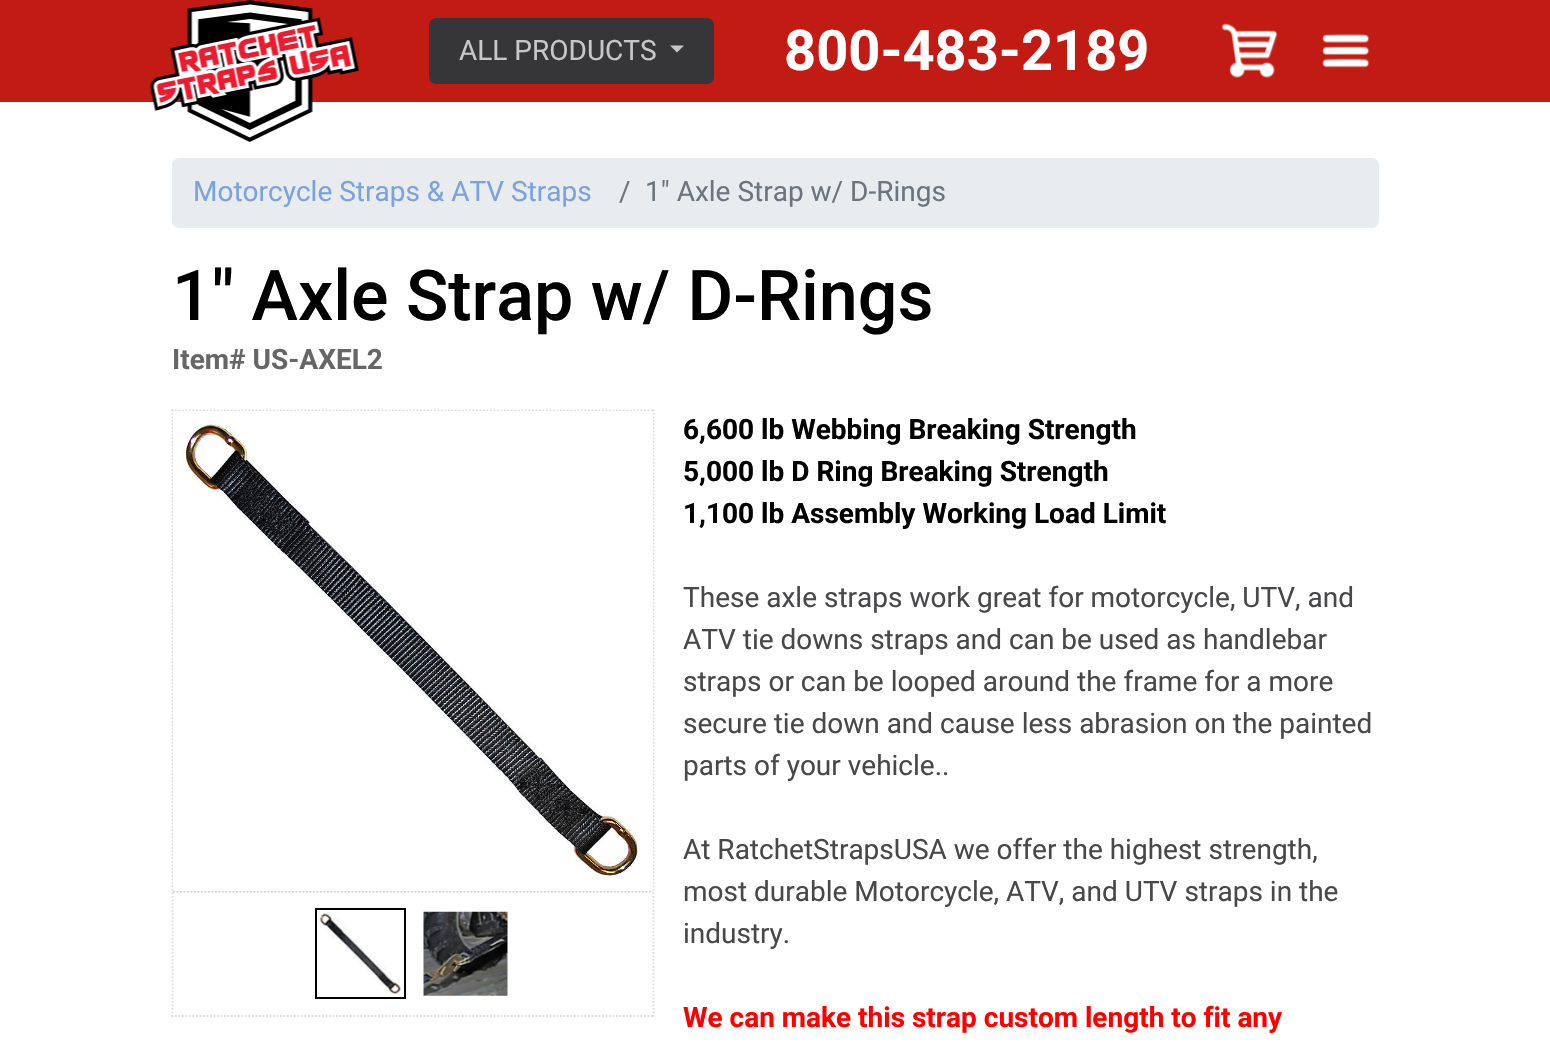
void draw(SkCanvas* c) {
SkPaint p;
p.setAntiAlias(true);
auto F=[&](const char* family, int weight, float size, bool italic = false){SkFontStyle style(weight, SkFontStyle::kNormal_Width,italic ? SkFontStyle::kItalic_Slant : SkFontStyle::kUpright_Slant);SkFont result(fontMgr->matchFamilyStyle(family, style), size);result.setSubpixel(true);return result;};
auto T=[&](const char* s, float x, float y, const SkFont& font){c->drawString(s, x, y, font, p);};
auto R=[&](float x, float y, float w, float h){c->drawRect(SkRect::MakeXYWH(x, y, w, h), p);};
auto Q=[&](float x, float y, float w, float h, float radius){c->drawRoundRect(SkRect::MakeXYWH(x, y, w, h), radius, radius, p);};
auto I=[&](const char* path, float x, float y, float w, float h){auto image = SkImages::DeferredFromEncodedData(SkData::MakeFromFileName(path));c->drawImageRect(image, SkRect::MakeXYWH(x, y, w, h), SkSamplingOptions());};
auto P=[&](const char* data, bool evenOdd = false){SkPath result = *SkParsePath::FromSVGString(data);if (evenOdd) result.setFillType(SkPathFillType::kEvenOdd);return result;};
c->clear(0xffffffff);
p.setColor(0xffc21b13);
R(0,0,1550,102);
I("1.png",150,0,210,142);
p.setColor(0xff363638);
c->drawRoundRect(SkRect::MakeXYWH(430,19,283,64),6,6,p);
p.setStroke(true);
p.setStrokeWidth(2);
c->drawRoundRect(SkRect::MakeXYWH(430,19,283,64),6,6,p);
auto f1 = F("Roboto",400,28);
p.setStroke(false);
p.setColor(0xffc7c7c9);
T("ALL PRODUCTS",459,60,f1);
c->drawPath(P("M670 45.5h14l-7 7z"),p);
auto f2 = F("Roboto",700,56);
p.setColor(0xffffffff);
T("800-483-2189",784,70,f2);
I("2.png",1222,23,56,55);
I("3.png",1322,33,48,35);
p.setColor(0xffe9ecef);
Q(172,158,1207,70,7);
p.setColor(0xff7aa3dd);
T("Motorcycle Straps & ATV Straps",193,201,f1);
p.setColor(0xff6c757d);
T("/",619,201,f1);
T("1\" Axle Strap w/ D-Rings",645,201,f1);
auto f3 = F("Roboto",500,70);
p.setColor(0xff000000);
T("1\" Axle Strap w/ D-Rings",172,320,f3);
auto f4 = F("Roboto",700,28);
p.setColor(0xff666666);
T("Item# US-AXEL2",172,369,f4);
p.setStroke(true);
p.setStrokeWidth(1.8);
p.setColor(0xffdddddd);
p.setPathEffect(SkDashPathEffect::Make({{1.75f,1.75f}}, 0));
c->drawPath(P("M171.5 410.5h483"),p);
p.setPathEffect(nullptr);
p.setPathEffect(SkDashPathEffect::Make({{1.75f,1.75f}}, 0));
c->drawPath(P("M653.5 409.5v607.5"),p);
p.setPathEffect(nullptr);
p.setPathEffect(SkDashPathEffect::Make({{1.75f,1.75f}}, 0));
c->drawPath(P("M171.5 1016h483"),p);
p.setPathEffect(nullptr);
p.setPathEffect(SkDashPathEffect::Make({{1.75f,1.75f}}, 0));
c->drawPath(P("M172.5 409.5v607.5"),p);
p.setPathEffect(nullptr);
p.setColor(0xffcccccc);
p.setPathEffect(SkDashPathEffect::Make({{1.75f,1.75f}}, 0));
c->drawPath(P("M173 891.5h480"),p);
p.setPathEffect(nullptr);
I("4.png",173,411,480,480);
p.setStrokeWidth(2);
p.setColor(0xff000000);
c->drawRect(SkRect::MakeXYWH(316,909,89,89),p);
I("5.png",318,911,84,85);
I("6.png",423,911,85,85);
p.setStroke(false);
T("6,600 lb Webbing Breaking Strength",683,439,f4);
T("5,000 lb D Ring Breaking Strength",683,481,f4);
T("1,100 lb Assembly Working Load Limit",683,523,f4);
p.setColor(0xff48484a);
T("These axle straps work great for motorcycle, UTV, and",683,607,f1);
T("ATV tie downs straps and can be used as handlebar",683,649,f1);
T("straps or can be looped around the frame for a more",683,691,f1);
T("secure tie down and cause less abrasion on the painted",683,733,f1);
T("parts of your vehicle..",683,775,f1);
T("At RatchetStrapsUSA we offer the highest strength,",683,859,f1);
T("most durable Motorcycle, ATV, and UTV straps in the",683,901,f1);
T("industry.",683,943,f1);
p.setColor(0xffff0000);
T("We can make this strap custom length to fit any",683,1027,f4);
}
